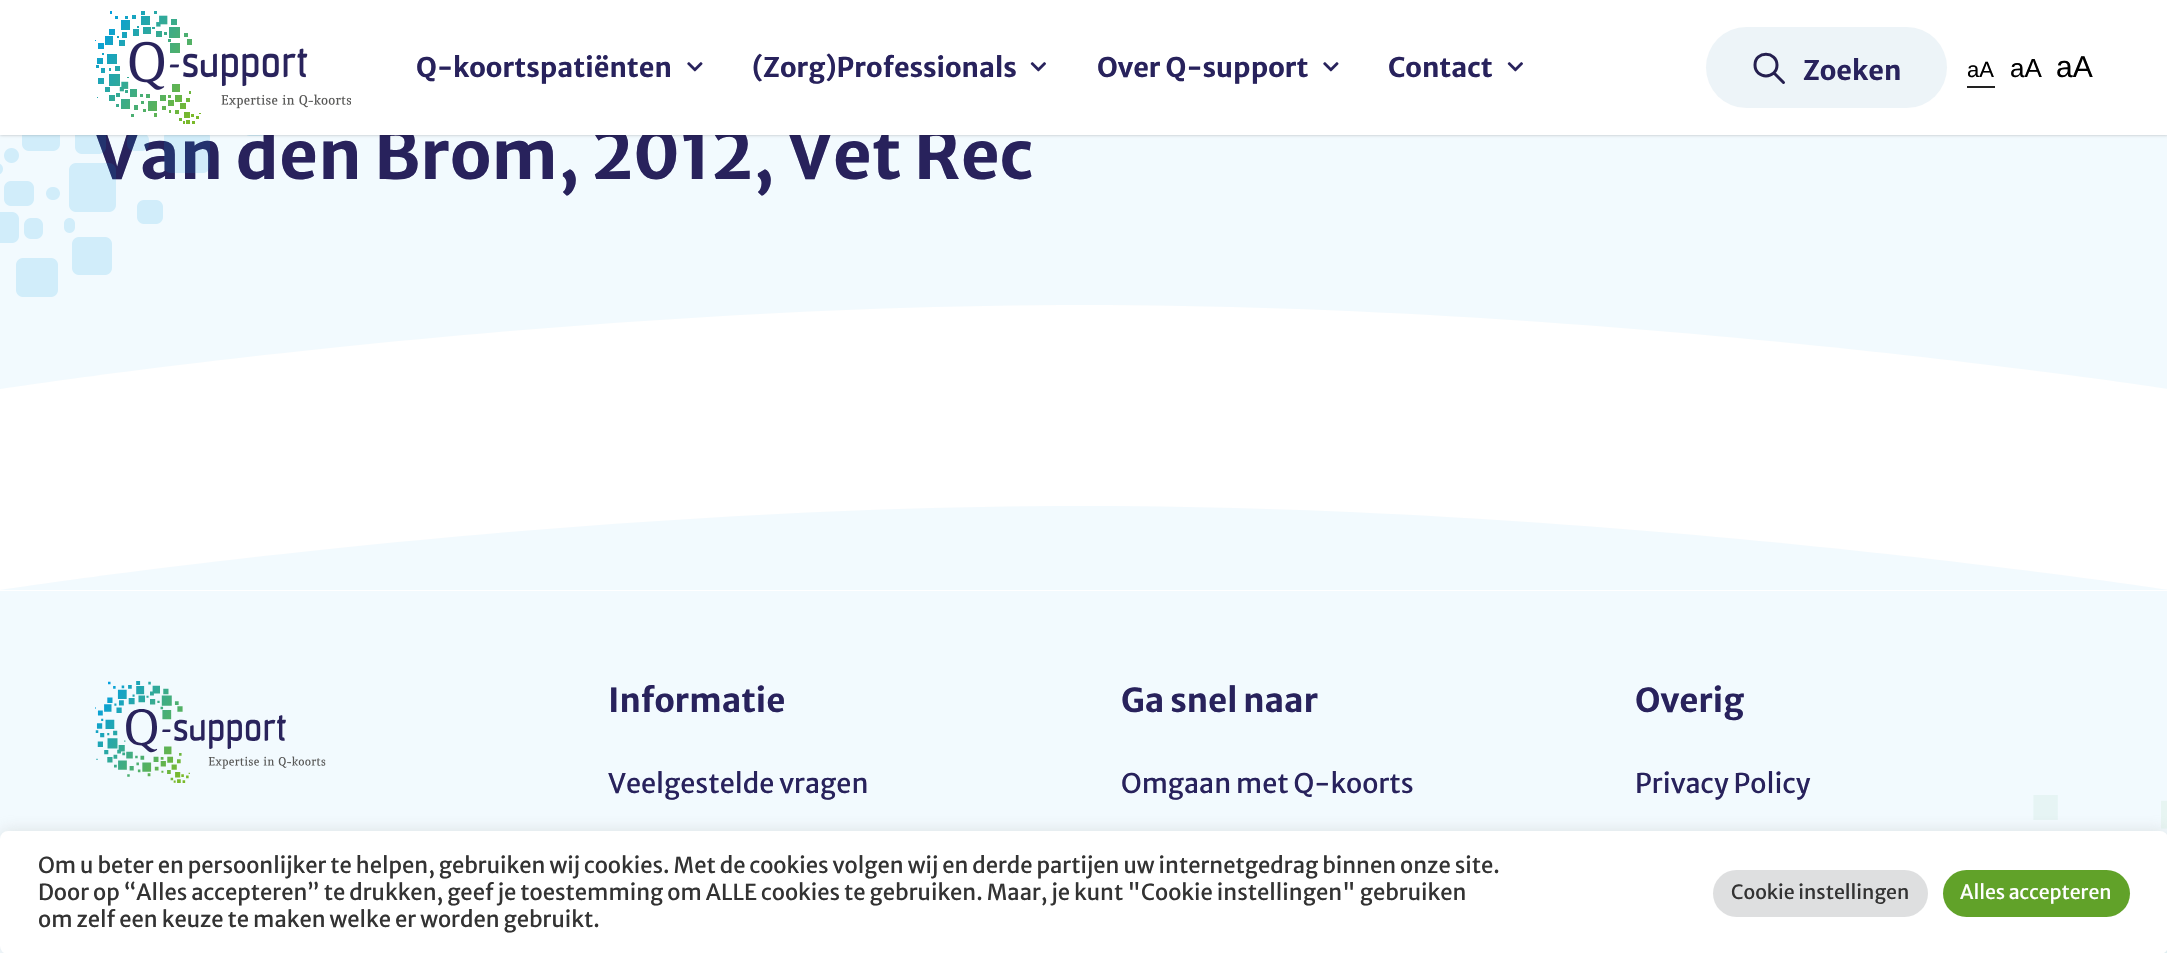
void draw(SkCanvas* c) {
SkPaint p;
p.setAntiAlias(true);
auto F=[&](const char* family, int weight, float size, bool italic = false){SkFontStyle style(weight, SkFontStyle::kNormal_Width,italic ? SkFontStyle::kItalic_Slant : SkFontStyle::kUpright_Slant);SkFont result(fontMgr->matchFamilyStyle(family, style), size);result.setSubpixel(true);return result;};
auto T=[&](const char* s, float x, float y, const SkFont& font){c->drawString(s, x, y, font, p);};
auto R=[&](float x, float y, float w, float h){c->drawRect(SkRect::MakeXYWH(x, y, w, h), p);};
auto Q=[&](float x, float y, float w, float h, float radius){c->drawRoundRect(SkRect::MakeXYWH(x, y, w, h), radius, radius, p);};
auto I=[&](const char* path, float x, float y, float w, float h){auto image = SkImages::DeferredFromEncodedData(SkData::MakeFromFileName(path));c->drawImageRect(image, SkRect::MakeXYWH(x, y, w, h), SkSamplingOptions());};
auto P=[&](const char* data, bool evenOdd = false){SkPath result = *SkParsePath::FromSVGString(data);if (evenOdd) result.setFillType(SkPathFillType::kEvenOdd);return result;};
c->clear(0xffffffff);
p.setColor(0xfff2fafe);
R(0,135,2167,254);
auto f1 = F("Merriweather Sans",700,67.5);
p.setColor(0xff28225c);
T("Van den Brom, 2012, Vet Rec",94,179,f1);
I("4.png",0,135,263,162);
p.setColor(0x40000000);
p.setMaskFilter(SkMaskFilter::MakeBlur(kNormal_SkBlurStyle, 1.5));
c->drawRect(SkRect::MakeXYWH(0,0,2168,135),p);
p.setMaskFilter(nullptr);
p.setColor(0xffffffff);
R(0,0,2167,135);
I("1.png",95,11,256,113);
auto f2 = F("Merriweather Sans",700,27);
p.setColor(0xff28225c);
T("Q-koortspatiënten",416,77,f2);
I("2.png",687,62,16,10);
T("(Zorg)Professionals",752,77,f2);
I("3.png",1030,62,16,10);
T("Over Q-support",1097,77,f2);
I("2.png",1323,62,16,10);
T("Contact",1388,77,f2);
I("3.png",1507,62,16,10);
p.setColor(0xffedf4f8);
Q(1706,27,241,81,40.5);
p.setStroke(true);
p.setStrokeWidth(3);
p.setStrokeCap(SkPaint::kRound_Cap);
p.setStrokeJoin(SkPaint::kRound_Join);
p.setColor(0xff251f4f);
c->drawPath(P("M1777 65c0 14.5-22 14.5-22 0c0-14.5 22-14 22 0zm6.5 17.5l-9.5-9.5"),p);
p.setStroke(false);
p.setColor(0xff28225c);
T("Zoeken",1803,80,f2);
p.setColor(0xff222222);
R(1967,86,28,2);
auto f3 = F("Liberation Sans",400,22);
p.setColor(0xff000000);
T("aA",1967,77,f3);
auto f4 = F("Liberation Sans",400,26);
T("aA",2010,77,f4);
auto f5 = F("Liberation Sans",400,30);
T("aA",2056,77,f5);
p.setColor(0xffffffff);
c->drawPath(P("M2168 389h-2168c0 0 543-84 1085-84c542 0 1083 84 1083 84z"),p);
p.setColor(0xfff2fafe);
R(0,591,2167,362);
c->drawPath(P("M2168 590h-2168c0 0 543-84 1085-84c542 0 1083 84 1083 84z"),p);
I("5.png",95,681,231,102);
auto f6 = F("Merriweather Sans",700,33);
p.setColor(0xff28225c);
T("Informatie",608,712,f6);
auto f7 = F("Merriweather Sans",400,27);
T("Veelgestelde vragen",608,793,f7);
T("Ga snel naar",1121,712,f6);
T("Omgaan met Q-koorts",1121,793,f7);
T("Overig",1635,712,f6);
T("Privacy Policy",1635,793,f7);
I("6.png",2033,795,134,158);
p.setColor(0x4dacabab);
p.setMaskFilter(SkMaskFilter::MakeBlur(kNormal_SkBlurStyle, 7.5));
c->drawRoundRect(SkRect::MakeXYWH(0,830,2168,123),8,8,p);
p.setMaskFilter(nullptr);
p.setColor(0xffffffff);
Q(0,831,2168,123,8);
auto f8 = F("Merriweather Sans",400,22);
p.setColor(0xff333333);
T("Om u beter en persoonlijker te helpen, gebruiken wij cookies. Met de cookies volgen wij en derde partijen uw internetgedrag binnen onze site.",38,873,f8);
T("Door op “Alles accepteren” te drukken, geef je toestemming om ALLE cookies te gebruiken. Maar, je kunt \"Cookie instellingen\" gebruiken",38,900,f8);
T("om zelf een keuze te maken welke er worden gebruikt.",38,927,f8);
p.setColor(0xffdedfe0);
Q(1713,870,215,47,23.5);
auto f9 = F("Merriweather Sans",400,19.5);
p.setColor(0xff333333);
T("Cookie instellingen",1731,899,f9);
p.setColor(0xff61a229);
Q(1943,870,187,47,23.5);
p.setColor(0xffffffff);
T("Alles accepteren",1960,899,f9);
}
